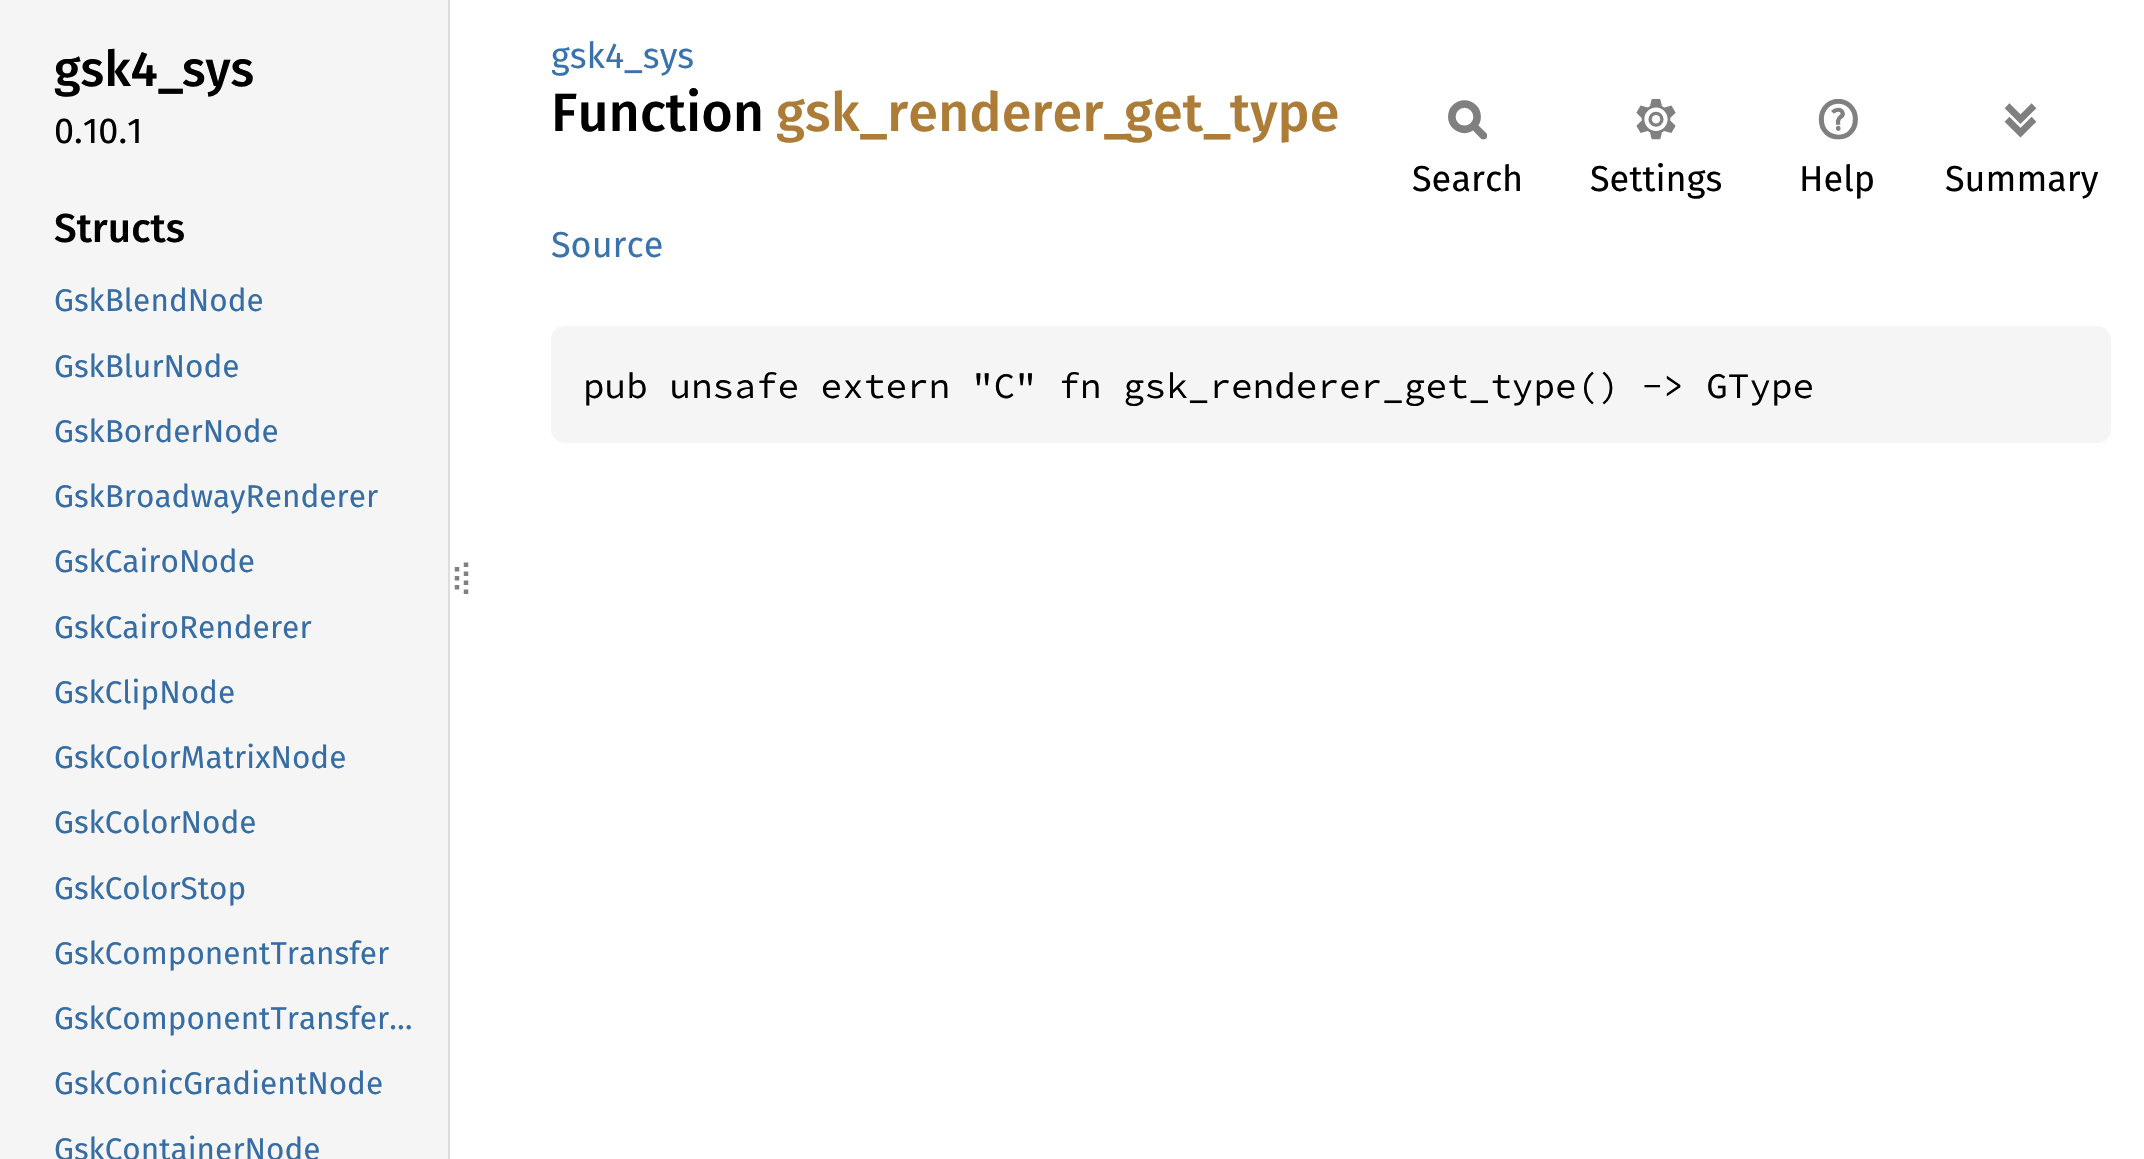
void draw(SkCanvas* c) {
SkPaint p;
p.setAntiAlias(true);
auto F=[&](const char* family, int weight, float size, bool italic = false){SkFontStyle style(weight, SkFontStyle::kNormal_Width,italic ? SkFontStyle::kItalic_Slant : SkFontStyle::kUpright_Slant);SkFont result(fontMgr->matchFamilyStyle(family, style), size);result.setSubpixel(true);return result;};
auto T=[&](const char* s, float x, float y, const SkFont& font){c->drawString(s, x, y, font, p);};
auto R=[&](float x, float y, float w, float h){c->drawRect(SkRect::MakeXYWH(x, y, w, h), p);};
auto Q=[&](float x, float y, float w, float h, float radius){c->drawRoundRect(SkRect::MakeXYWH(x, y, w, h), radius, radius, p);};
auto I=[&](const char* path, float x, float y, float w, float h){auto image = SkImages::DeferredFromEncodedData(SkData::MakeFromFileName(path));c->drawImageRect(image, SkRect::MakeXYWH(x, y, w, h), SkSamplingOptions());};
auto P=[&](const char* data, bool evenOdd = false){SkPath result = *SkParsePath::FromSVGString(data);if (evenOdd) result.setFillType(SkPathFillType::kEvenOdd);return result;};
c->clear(0xffffffff);
p.setColor(0xfff5f5f5);
R(0,0,448,1159);
p.setColor(0xffdddddd);
R(448,0,2,1159);
auto f1 = F("Fira Sans",500,49.5);
p.setColor(0xff000000);
T("gsk4_",54,86,f1);
T("sys",182,86,f1);
auto f2 = F("Fira Sans",400,36);
T("0.10.1",54,143,f2);
auto f3 = F("Fira Sans",500,40.5);
T("Structs",54,242,f3);
auto f4 = F("Fira Sans",400,31.5);
p.setColor(0xff356da4);
T("GskBlendNode",54,311,f4);
T("GskBlurNode",54,377,f4);
T("GskBorderNode",54,442,f4);
T("GskBroadwayRenderer",54,507,f4);
T("GskCairoNode",54,572,f4);
T("GskCairoRenderer",54,638,f4);
T("GskClipNode",54,703,f4);
T("GskColorMatrixNode",54,768,f4);
T("GskColorNode",54,833,f4);
T("GskColorStop",54,899,f4);
T("GskComponentTransfer",54,964,f4);
T("GskComponentTransfer…",54,1029,f4);
T("GskConicGradientNode",54,1094,f4);
T("GskContainerNode",54,1160,f4);
p.setStroke(true);
p.setStrokeWidth(4.5);
p.setColor(0xff808080);
c->drawPath(P("M457 567v4.5m0 4.5v4.5m0 4.5v4.5"),p);
p.setPathEffect(SkDashPathEffect::Make({{4.5f,4.5f}}, 0));
c->drawPath(P("M466 562.5v36"),p);
p.setPathEffect(nullptr);
p.setStroke(false);
p.setColor(0xff3873ad);
T("gsk4_sys",551,68,f2);
auto f5 = F("Fira Sans",500,54);
p.setColor(0xff000000);
T("Function",551,131,f5);
p.setColor(0xffad7c37);
T("gsk_",776,131,f5);
T("renderer_",887,131,f5);
T("get_",1124,131,f5);
T("type",1230,131,f5);
I("1.png",1448,100,39,40);
p.setColor(0xff000000);
T("Search",1412,191,f2);
I("2.png",1636,99,40,41);
T("Settings",1590,191,f2);
I("3.png",1818,99,40,41);
T("Help",1799,191,f2);
I("4.png",2004,103,33,35);
T("Summary",1945,191,f2);
p.setColor(0xff3873ad);
T("Source",551,257,f2);
p.setColor(0xfff5f5f5);
Q(551,326,1560,117,14);
auto f6 = F("Source Code Pro",400,36);
p.setColor(0xff000000);
T("pub unsafe extern \"C\" fn gsk_renderer_get_type() -> GType",583,398,f6);
}
